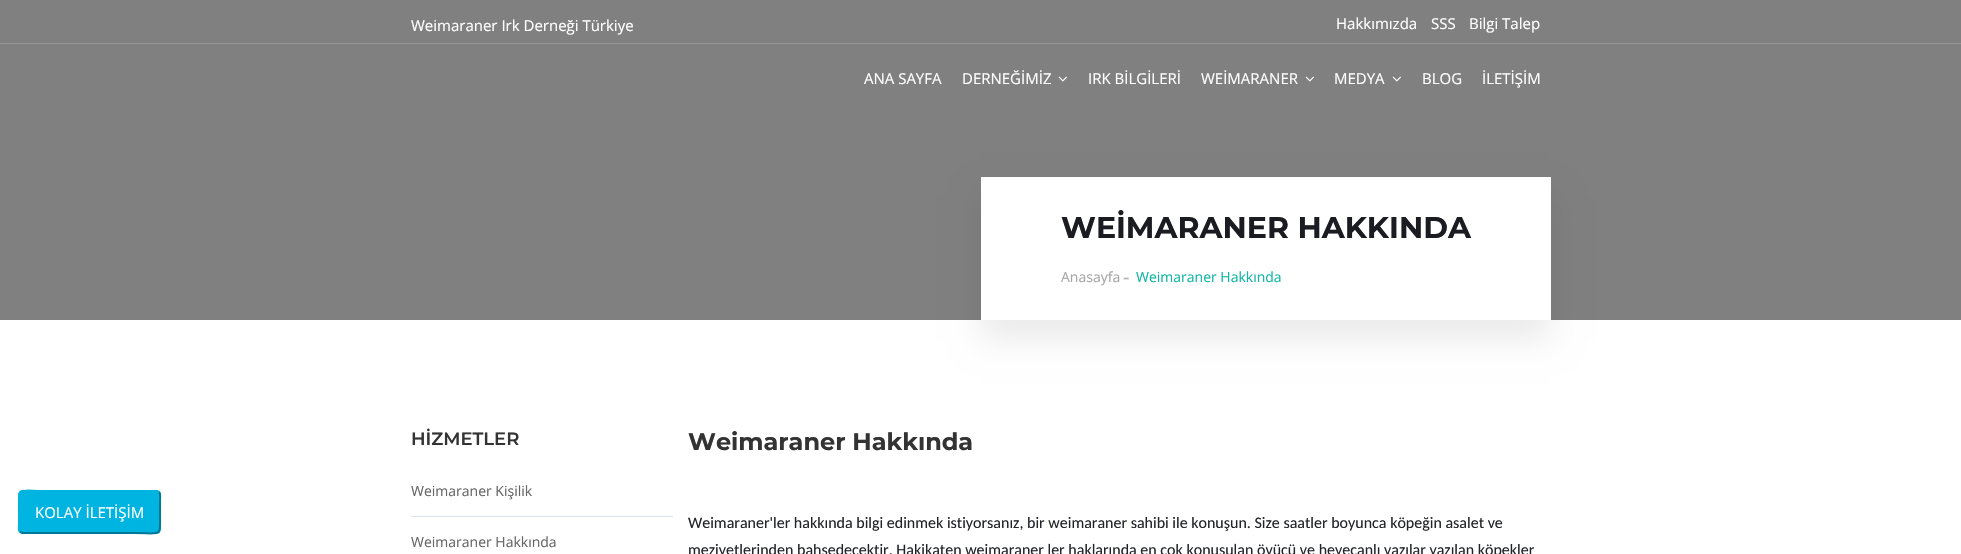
void draw(SkCanvas* c) {
SkPaint p;
p.setAntiAlias(true);
auto F=[&](const char* family, int weight, float size, bool italic = false){SkFontStyle style(weight, SkFontStyle::kNormal_Width,italic ? SkFontStyle::kItalic_Slant : SkFontStyle::kUpright_Slant);SkFont result(fontMgr->matchFamilyStyle(family, style), size);result.setSubpixel(true);return result;};
auto T=[&](const char* s, float x, float y, const SkFont& font){c->drawString(s, x, y, font, p);};
auto R=[&](float x, float y, float w, float h){c->drawRect(SkRect::MakeXYWH(x, y, w, h), p);};
auto Q=[&](float x, float y, float w, float h, float radius){c->drawRoundRect(SkRect::MakeXYWH(x, y, w, h), radius, radius, p);};
auto I=[&](const char* path, float x, float y, float w, float h){auto image = SkImages::DeferredFromEncodedData(SkData::MakeFromFileName(path));c->drawImageRect(image, SkRect::MakeXYWH(x, y, w, h), SkSamplingOptions());};
auto P=[&](const char* data, bool evenOdd = false){SkPath result = *SkParsePath::FromSVGString(data);if (evenOdd) result.setFillType(SkPathFillType::kEvenOdd);return result;};
c->clear(0xffffffff);
p.setColor(0xff808080);
R(0,0,1961,320);
p.setColor(0xff949494);
R(0,43,1961,1);
auto f1 = F("Open Sans",400,15);
p.setColor(0xffffffff);
T("Weimaraner Irk Derneği Türkiye",411,31,f1);
T("Hakkımızda",1336,29,f1);
T("SSS",1431,29,f1);
T("Bilgi Talep",1469,29,f1);
T("ANA SAYFA",864,84,f1);
T("DERNEĞİMİZ",962,84,f1);
I("1.png",1058,76,9,6);
T("IRK BİLGİLERİ",1088,84,f1);
T("WEİMARANER",1201,84,f1);
I("1.png",1305,76,9,6);
T("MEDYA",1334,84,f1);
I("1.png",1392,76,9,6);
T("BLOG",1422,84,f1);
T("İLETİŞİM",1482,84,f1);
p.setColor(0x14000000);
p.setMaskFilter(SkMaskFilter::MakeBlur(kNormal_SkBlurStyle, 15));
c->drawRect(SkRect::MakeXYWH(981,197,570,143),p);
p.setMaskFilter(nullptr);
p.setColor(0xffffffff);
R(981,177,570,143);
auto f2 = F("Montserrat",100,30);
p.setColor(0xff1b1c21);
T("WEİMARANER HAKKINDA",1061,238,f2);
auto f3 = F("Open Sans",400,14);
p.setColor(0xffa5a5a5);
T("Anasayfa",1061,282,f3);
auto f4 = F("Liberation Serif",400,19);
p.setColor(0xffaeaeae);
T("-",1123,283,f4);
p.setColor(0xff11b6a5);
T("Weimaraner Hakkında",1136,282,f3);
p.setColor(0xff00b4e1);
Q(18,490,143,44,5);
p.setStroke(true);
p.setStrokeWidth(2);
p.setColor(0xff007896);
c->drawPath(P("M159 492c2 2 1 6.5 1 8.5v11.5c0 26.5 3.5 21-26 21h-111l-3-1"),p);
p.setColor(0xff00b4e1);
c->drawPath(P("M20 532c-2-2-1-6.5-1-8.5v-11.5c0-26.5-3.5-21 26-21h111l3 1"),p);
p.setStroke(false);
p.setColor(0xffffffff);
T("KOLAY İLETİŞİM",35,518,f1);
auto f5 = F("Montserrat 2",100,18);
p.setColor(0xff333333);
T("HİZMETLER",411,445,f5);
p.setColor(0xffdee5e9);
R(411,516,262,1);
p.setColor(0xff666666);
T("Weimaraner Kişilik",411,496,f3);
T("Weimaraner Hakkında",411,547,f3);
auto f6 = F("Montserrat",100,24);
p.setColor(0xff333333);
T("Weimaraner Hakkında",688,450,f6);
auto f7 = F("Carlito",400,16);
p.setColor(0xff212529);
T("Weimaraner'ler hakkında bilgi edinmek istiyorsanız, bir weimaraner sahibi ile konuşun. Size saatler boyunca köpeğin asalet ve",688,528,f7);
T("meziyetlerinden bahsedecektir. Hakikaten weimaraner ler haklarında en çok konuşulan övücü ve heyecanlı yazılar yazılan köpekler",688,555,f7);
}
